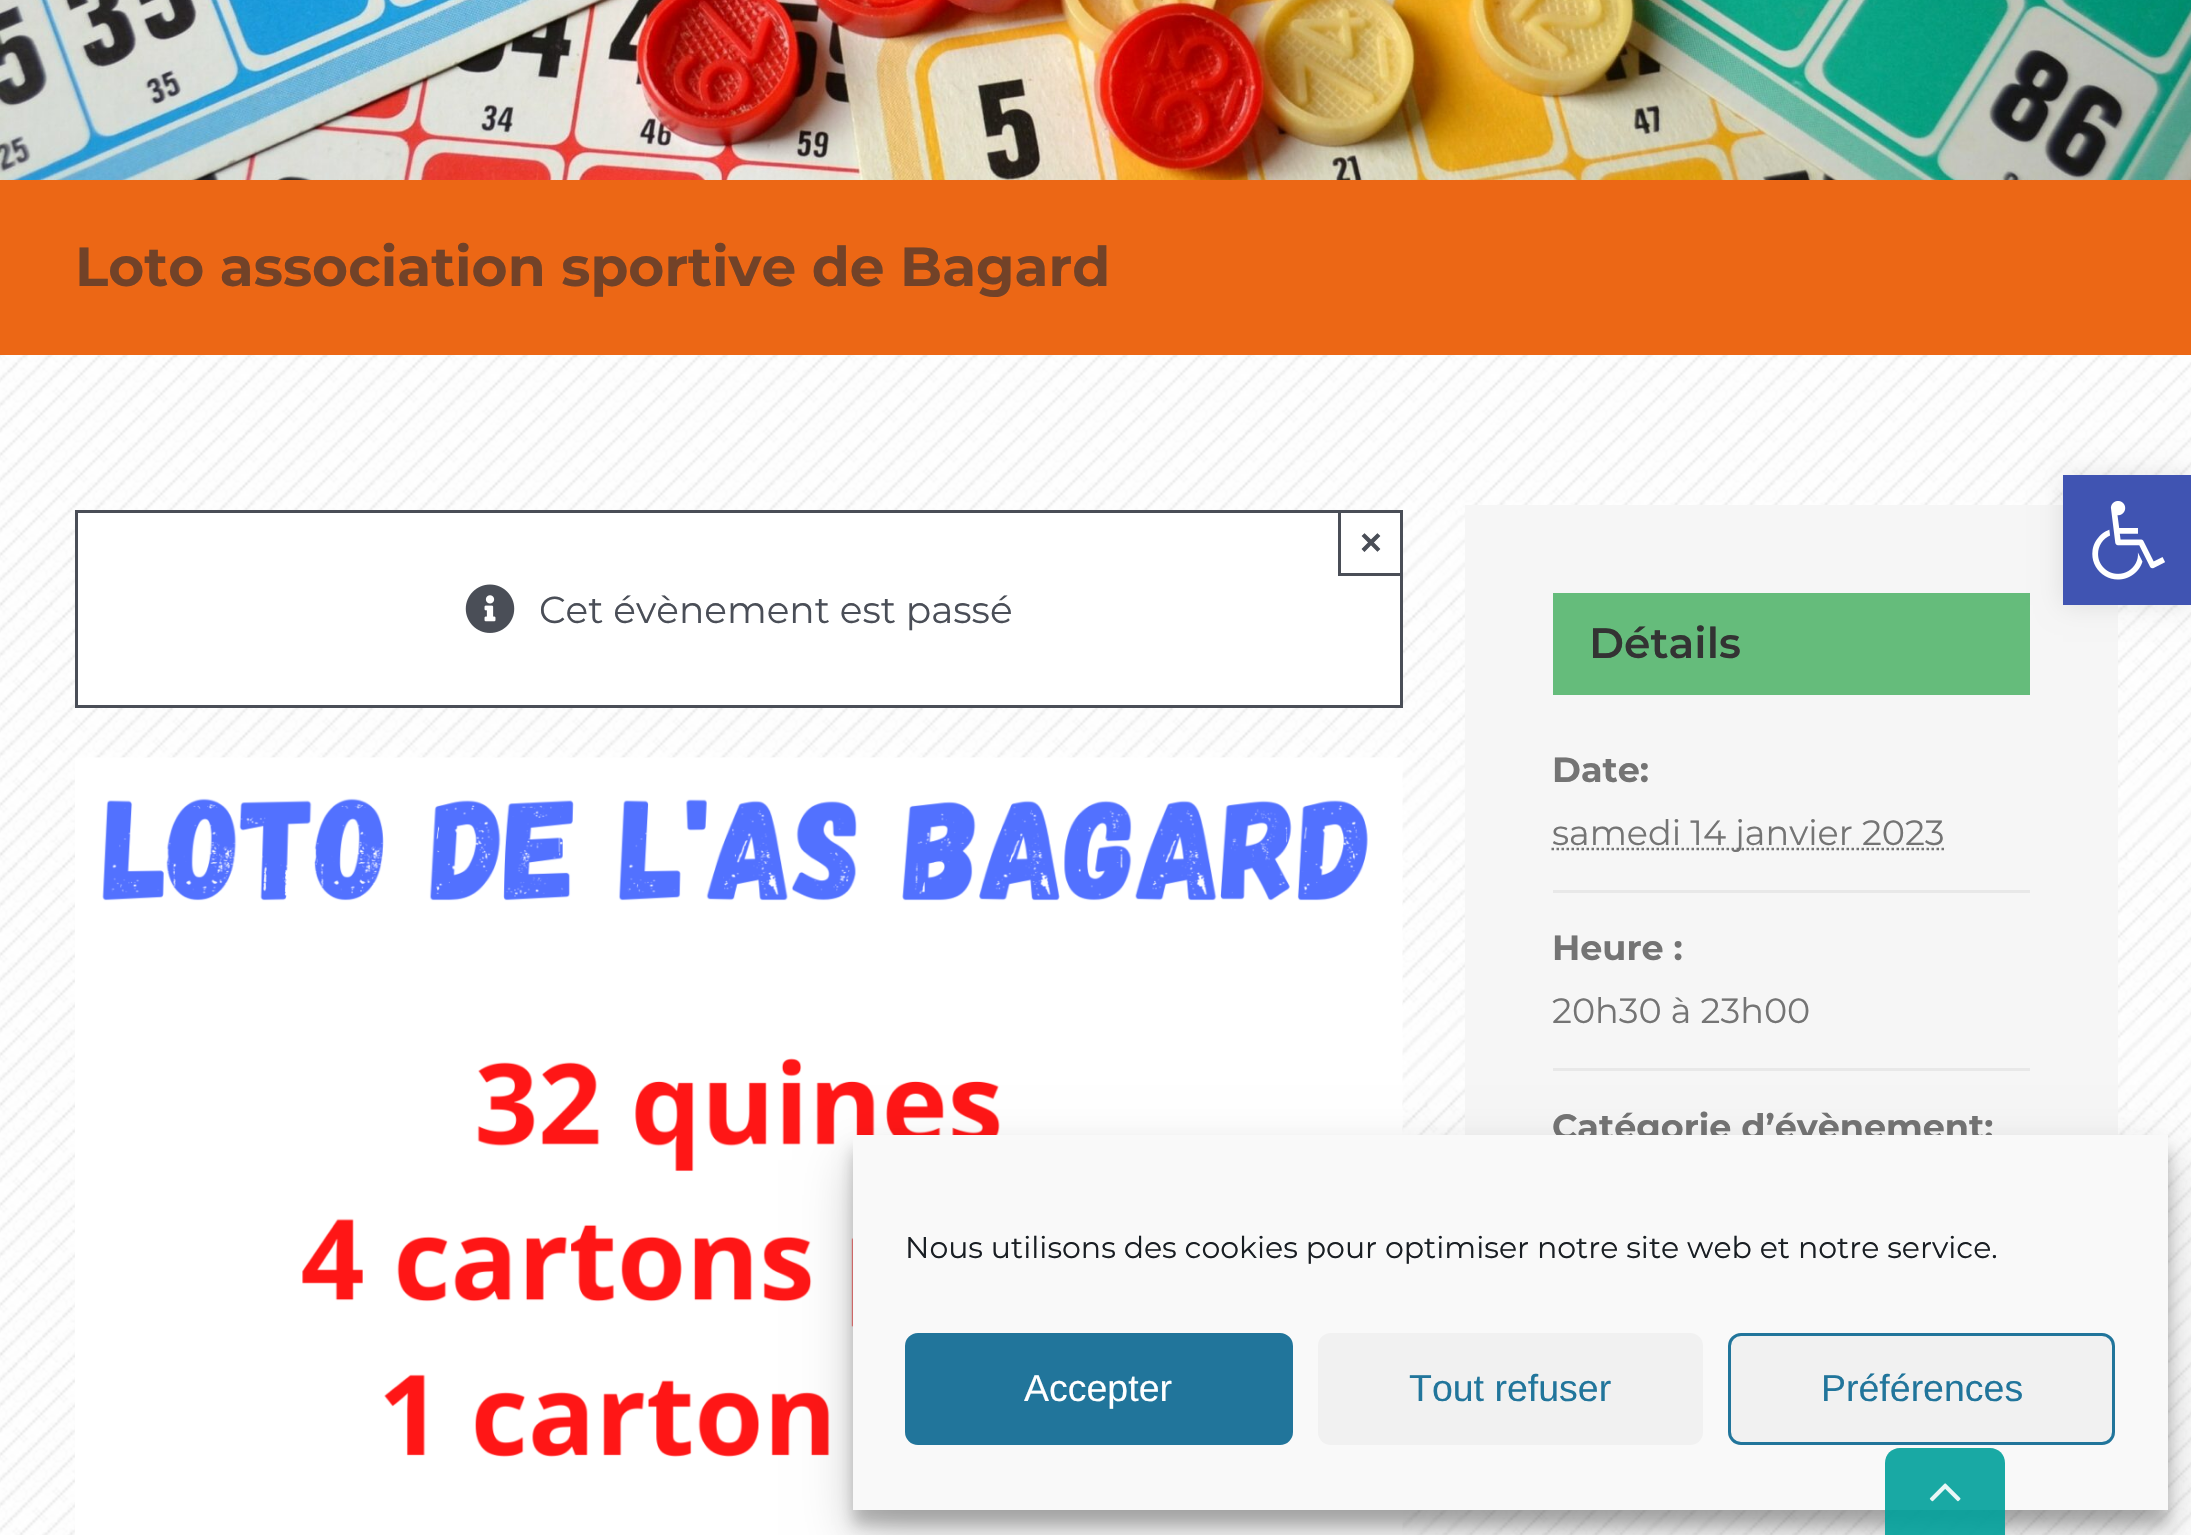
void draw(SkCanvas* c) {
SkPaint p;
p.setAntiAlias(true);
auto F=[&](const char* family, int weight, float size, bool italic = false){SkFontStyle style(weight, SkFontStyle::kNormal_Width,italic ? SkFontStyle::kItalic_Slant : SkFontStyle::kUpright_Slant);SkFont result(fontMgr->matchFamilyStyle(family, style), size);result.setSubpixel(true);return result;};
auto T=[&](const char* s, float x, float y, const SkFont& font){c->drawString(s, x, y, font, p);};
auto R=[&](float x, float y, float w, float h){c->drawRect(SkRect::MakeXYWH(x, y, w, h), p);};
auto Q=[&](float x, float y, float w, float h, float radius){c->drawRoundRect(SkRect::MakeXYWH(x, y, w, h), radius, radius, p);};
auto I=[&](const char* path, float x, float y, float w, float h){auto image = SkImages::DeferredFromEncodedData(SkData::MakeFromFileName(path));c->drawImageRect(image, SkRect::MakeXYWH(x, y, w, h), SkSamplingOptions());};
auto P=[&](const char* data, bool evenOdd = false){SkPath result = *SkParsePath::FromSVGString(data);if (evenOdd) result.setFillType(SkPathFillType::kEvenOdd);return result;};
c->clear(0xffec6715);
I("1.png",0,0,2191,180);
auto f1 = F("Montserrat",700,55);
p.setColor(0xff724228);
T("Loto association sportive de Bagard",75,286,f1);
I("2.png",0,355,2191,1180);
p.setColor(0xffffffff);
c->drawRect(SkRect::MakeXYWH(76.5,511.5,1325,195),p);
p.setStroke(true);
p.setStrokeWidth(3);
p.setColor(0xff4a4e57);
c->drawRect(SkRect::MakeXYWH(76.5,511.5,1325,195),p);
p.setStroke(false);
R(1338,573,65,3);
R(1338,510,3,65);
auto f2 = F("Liberation Sans",700,37.5);
T("×",1360,555,f2);
I("3.png",465,584,50,49);
auto f3 = F("Montserrat",400,37.5);
T("Cet évènement est passé",539,623,f3);
I("4.png",75,757,1328,778);
p.setColor(0xfff6f6f6);
R(1465,505,653,630);
p.setColor(0xff65bc7b);
R(1553,593,477,102);
auto f4 = F("Montserrat",600,42.5);
p.setColor(0xff333333);
T("Détails",1589,658,f4);
auto f5 = F("Montserrat",700,35);
p.setColor(0xff747474);
T("Date:",1552,782,f5);
p.setColor(0xffe8e8e8);
R(1553,890,477,3);
p.setStroke(true);
p.setStrokeWidth(2.5);
p.setColor(0xff747474);
p.setPathEffect(SkDashPathEffect::Make({{2.5f,2.5f}}, 0));
c->drawPath(P("M1551.5 849h392.5"),p);
p.setPathEffect(nullptr);
auto f6 = F("Montserrat",400,35);
p.setStroke(false);
T("samedi 14 janvier 2023",1552,845,f6);
T("Heure :",1552,960,f5);
p.setColor(0xffe8e8e8);
R(1553,1068,477,3);
p.setColor(0xff747474);
T("20h30 à 23h00",1552,1023,f6);
T("Catégorie d’évènement:",1552,1139,f5);
p.setColor(0x1a000000);
p.setMaskFilter(SkMaskFilter::MakeBlur(kNormal_SkBlurStyle, 12.5));
c->drawRect(SkRect::MakeXYWH(2063,475,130,130),p);
p.setMaskFilter(nullptr);
p.setColor(0xff4054b2);
R(2063,475,128,130);
I("5.png",2092,501,73,79);
p.setColor(0x3b000000);
p.setMaskFilter(SkMaskFilter::MakeBlur(kNormal_SkBlurStyle, 7.5));
c->drawRect(SkRect::MakeXYWH(853,1150,1315,375),p);
p.setMaskFilter(nullptr);
p.setColor(0x30000000);
p.setMaskFilter(SkMaskFilter::MakeBlur(kNormal_SkBlurStyle, 25));
c->drawRect(SkRect::MakeXYWH(853,1160,1315,375),p);
p.setMaskFilter(nullptr);
p.setColor(0xfff9f9f9);
R(853,1135,1315,375);
auto f7 = F("Montserrat",400,30);
p.setColor(0xff191e23);
T("Nous utilisons des cookies pour optimiser notre site web et notre service.",905,1258,f7);
p.setColor(0xff21759b);
c->drawRoundRect(SkRect::MakeXYWH(906.5,1334.5,385,109),11.5,11.5,p);
p.setStroke(true);
p.setStrokeWidth(3);
c->drawRoundRect(SkRect::MakeXYWH(906.5,1334.5,385,109),11.5,11.5,p);
auto f8 = F("Liberation Sans",400,37.5);
p.setStroke(false);
p.setColor(0xffffffff);
T("Accepter",1024,1401,f8);
p.setColor(0xfff1f1f1);
Q(1318,1333,385,112,13);
p.setColor(0xff21759b);
T("Tout refuser",1409,1401,f8);
p.setColor(0xfff1f1f1);
c->drawRoundRect(SkRect::MakeXYWH(1729.5,1334.5,384,109),11.5,11.5,p);
p.setStroke(true);
p.setColor(0xff21759b);
c->drawRoundRect(SkRect::MakeXYWH(1729.5,1334.5,384,109),11.5,11.5,p);
p.setStroke(false);
T("Préférences",1821,1401,f8);
p.setColor(0xe600a09a);
c->drawPath(P("M1900 1448h90c8.5 0 15 6.5 15 15v72h-120v-72c0-8.5 6.5-15 15-15z"),p);
I("6.png",1929,1483,32,19);
}
